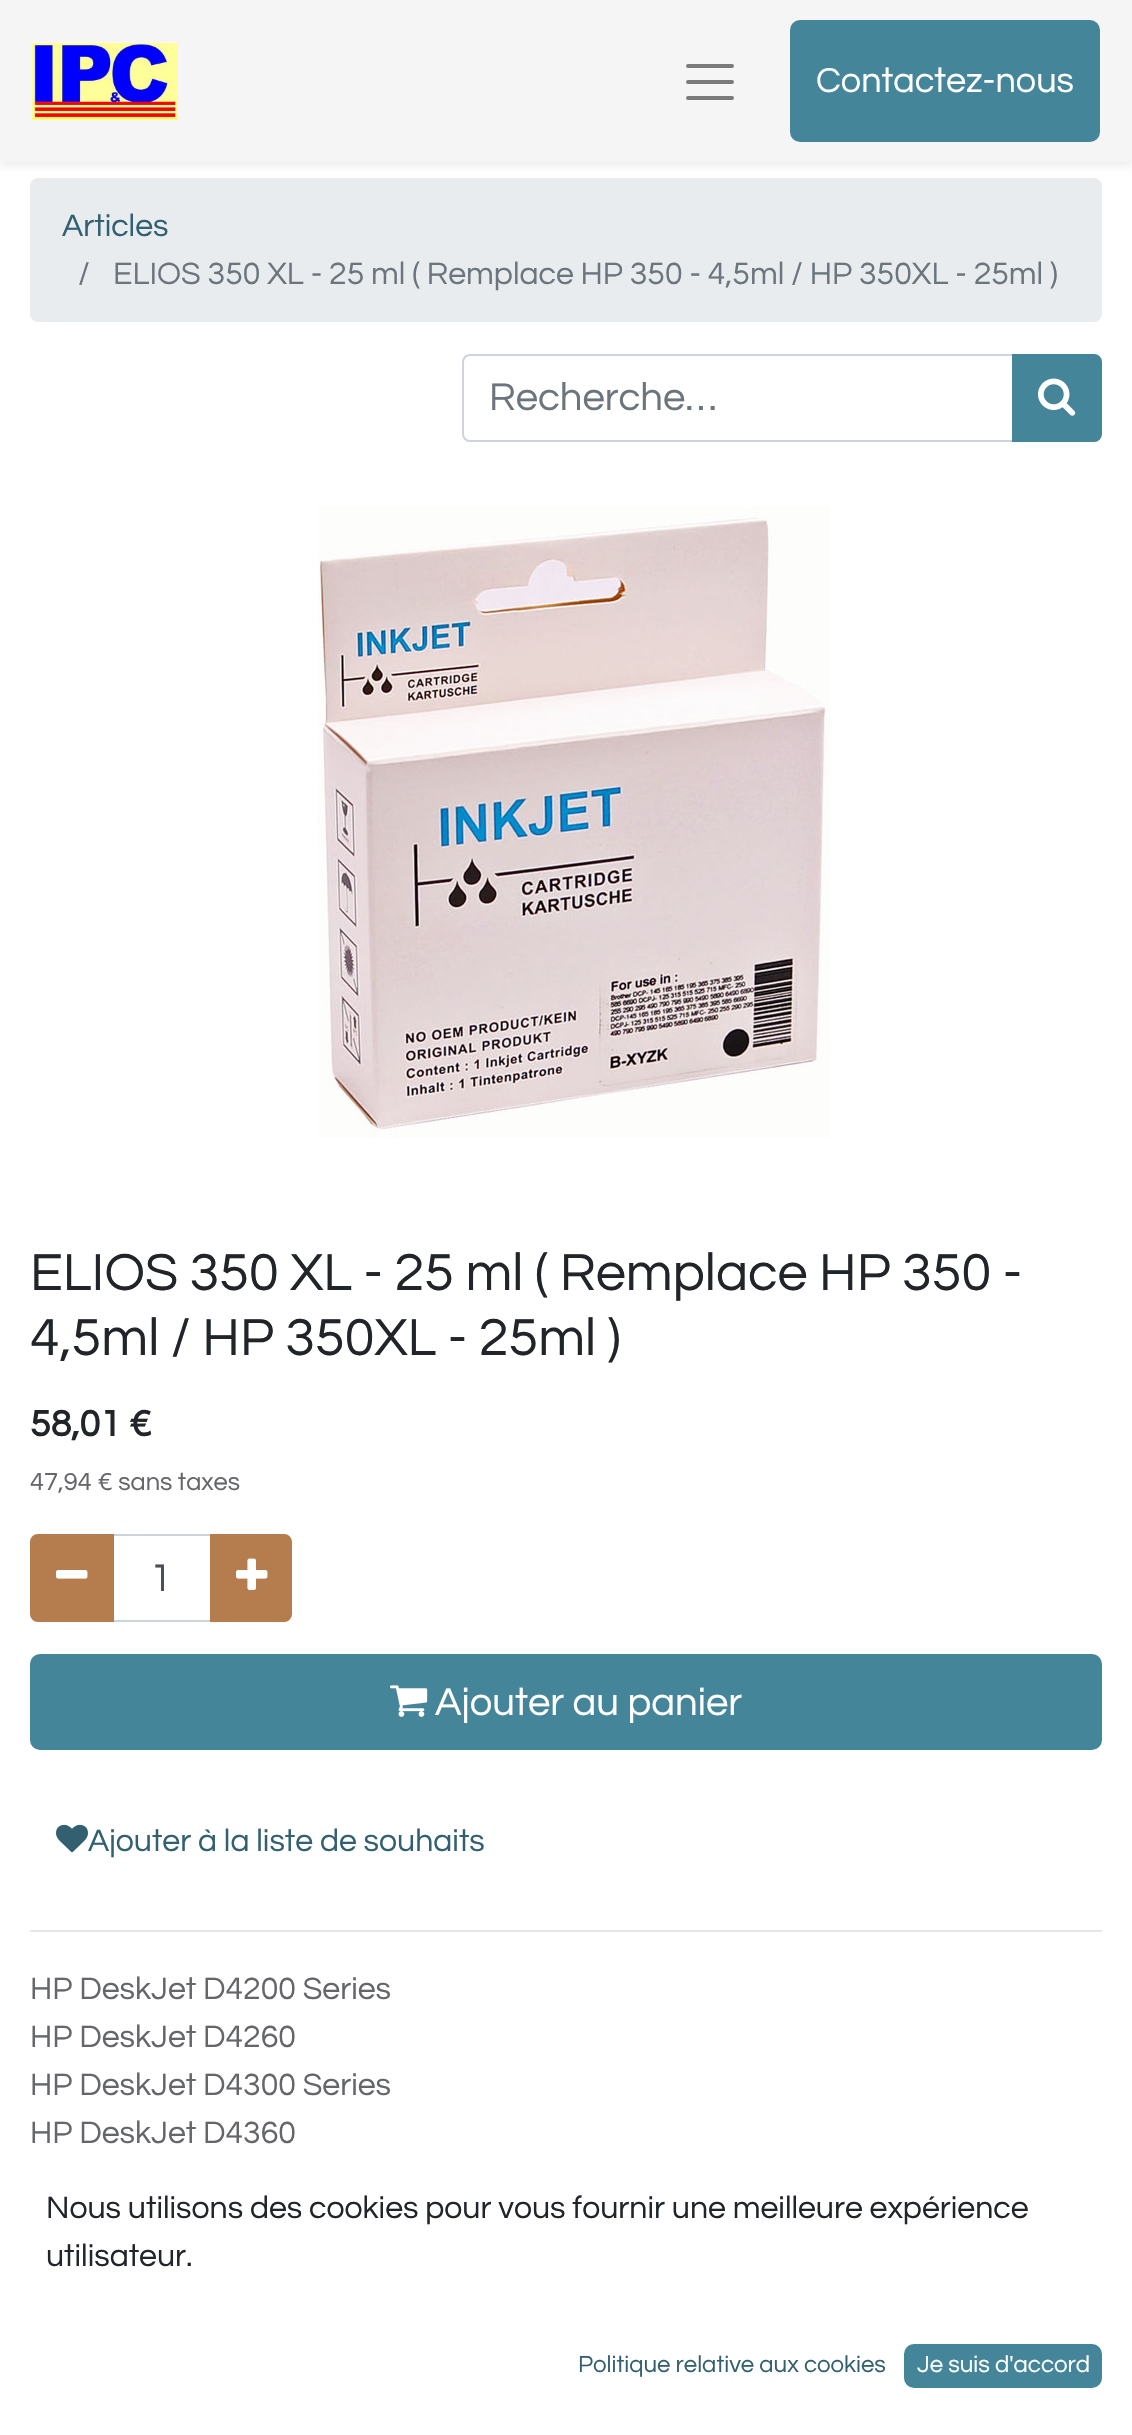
void draw(SkCanvas* c) {
SkPaint p;
p.setAntiAlias(true);
auto F=[&](const char* family, int weight, float size, bool italic = false){SkFontStyle style(weight, SkFontStyle::kNormal_Width,italic ? SkFontStyle::kItalic_Slant : SkFontStyle::kUpright_Slant);SkFont result(fontMgr->matchFamilyStyle(family, style), size);result.setSubpixel(true);return result;};
auto T=[&](const char* s, float x, float y, const SkFont& font){c->drawString(s, x, y, font, p);};
auto R=[&](float x, float y, float w, float h){c->drawRect(SkRect::MakeXYWH(x, y, w, h), p);};
auto Q=[&](float x, float y, float w, float h, float radius){c->drawRoundRect(SkRect::MakeXYWH(x, y, w, h), radius, radius, p);};
auto I=[&](const char* path, float x, float y, float w, float h){auto image = SkImages::DeferredFromEncodedData(SkData::MakeFromFileName(path));c->drawImageRect(image, SkRect::MakeXYWH(x, y, w, h), SkSamplingOptions());};
auto P=[&](const char* data, bool evenOdd = false){SkPath result = *SkParsePath::FromSVGString(data);if (evenOdd) result.setFillType(SkPathFillType::kEvenOdd);return result;};
c->clear(0xffffffff);
p.setColor(0xffe9ecef);
Q(30,178,1072,144,8);
p.setColor(0x12000000);
p.setMaskFilter(SkMaskFilter::MakeBlur(kNormal_SkBlurStyle, 4));
c->drawRect(SkRect::MakeXYWH(0,4,1132,162),p);
p.setMaskFilter(nullptr);
p.setColor(0xfff5f5f5);
R(0,0,1132,162);
I("1.png",32,42,146,78);
p.setStroke(true);
p.setStrokeWidth(4);
p.setStrokeCap(SkPaint::kRound_Cap);
p.setColor(0xff7b7b7b);
c->drawPath(P("M688 66h44m-44 16h44m-44 16h44"),p);
p.setStroke(false);
p.setColor(0xff45859a);
c->drawRoundRect(SkRect::MakeXYWH(791,21,308,120),9,9,p);
p.setStroke(true);
p.setStrokeWidth(2);
p.setStrokeCap(SkPaint::kButt_Cap);
c->drawRoundRect(SkRect::MakeXYWH(791,21,308,120),9,9,p);
auto f1 = F("Questrial",400,36);
p.setStroke(false);
p.setColor(0xffffffff);
T("Contactez-nous",816,92,f1);
auto f2 = F("Questrial",400,32);
p.setColor(0xff326070);
T("Articles",62,236,f2);
p.setColor(0xff6c757d);
T("/",78,284,f2);
T("ELIOS 350 XL - 25 ml ( Remplace HP 350 - 4,5ml / HP 350XL - 25ml )",113,284,f2);
p.setStroke(true);
p.setColor(0xffced4da);
c->drawPath(P("M470 355h543v86h-543c-4 0-7-3-7-7v-72c0-4 3-7 7-7z"),p);
auto f3 = F("Questrial",400,40);
p.setStroke(false);
p.setColor(0xff6c757d);
T("Recherche…",489,410,f3);
p.setColor(0xff45859a);
c->drawPath(P("M1013 355h81c4 0 7 3 7 7v72c0 4-3 7-7 7h-81z"),p);
p.setStroke(true);
c->drawPath(P("M1013 355h81c4 0 7 3 7 7v72c0 4-3 7-7 7h-81z"),p);
I("2.png",1038,378,38,38);
I("3.png",318,506,512,632);
auto f4 = F("Questrial",400,54);
p.setStroke(false);
p.setColor(0xff212529);
T("ELIOS 350 XL - 25 ml ( Remplace HP 350 -",30,1290,f4);
T("4,5ml / HP 350XL - 25ml )",30,1355,f4);
auto f5 = F("Questrial",700,37.5);
T("58,01 €",30,1436,f5);
auto f6 = F("Questrial",400,25.5);
p.setColor(0xff646669);
T("47,94 € sans taxes",30,1490,f6);
p.setStroke(true);
p.setColor(0xffced4da);
c->drawRect(SkRect::MakeXYWH(113,1535,98,86),p);
p.setStroke(false);
p.setColor(0xffb57d4d);
c->drawPath(P("M38 1535h75v86h-75c-4 0-7-3-7-7v-72c0-4 3-7 7-7z"),p);
p.setStroke(true);
c->drawPath(P("M38 1535h75v86h-75c-4 0-7-3-7-7v-72c0-4 3-7 7-7z"),p);
I("4.png",56,1570,32,9);
p.setStroke(false);
p.setColor(0xff495057);
T("1",150,1591,f3);
p.setColor(0xffb57d4d);
c->drawPath(P("M211 1535h73c4 0 7 3 7 7v72c0 4-3 7-7 7h-73z"),p);
p.setStroke(true);
c->drawPath(P("M211 1535h73c4 0 7 3 7 7v72c0 4-3 7-7 7h-73z"),p);
I("5.png",236,1558,32,32);
p.setStroke(false);
p.setColor(0xff45859a);
c->drawRoundRect(SkRect::MakeXYWH(31,1655,1070,94),9,9,p);
p.setStroke(true);
c->drawRoundRect(SkRect::MakeXYWH(31,1655,1070,94),9,9,p);
I("6.png",390,1685,38,32);
p.setStroke(false);
p.setColor(0xffffffff);
T("Ajouter au panier",435,1715,f3);
I("7.png",56,1824,32,29);
p.setColor(0xff326070);
T("Ajouter à la liste de souhaits",88,1851,f2);
p.setColor(0xffe6e6e6);
R(30,1930,1072,2);
p.setColor(0xff646669);
T("HP DeskJet D4200 Series",30,1999,f2);
T("HP DeskJet D4260",30,2047,f2);
T("HP DeskJet D4300 Series",30,2095,f2);
T("HP DeskJet D4360",30,2143,f2);
p.setColor(0xff212529);
T("Nous utilisons des cookies pour vous fournir une meilleure expérience",46,2218,f2);
T("utilisateur.",46,2266,f2);
auto f7 = F("Questrial",400,24);
p.setColor(0xff326070);
T("Politique relative aux cookies",578,2372,f7);
p.setColor(0xff45859a);
c->drawRoundRect(SkRect::MakeXYWH(905,2345,196,42),9,9,p);
p.setStroke(true);
c->drawRoundRect(SkRect::MakeXYWH(905,2345,196,42),9,9,p);
p.setStroke(false);
p.setColor(0xffffffff);
T("Je suis d'accord",917,2372,f7);
}
